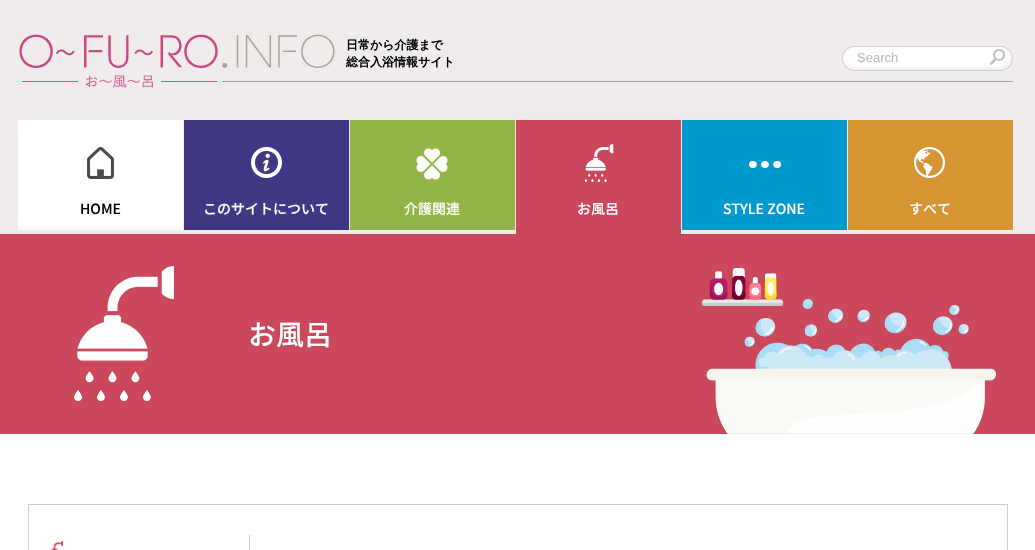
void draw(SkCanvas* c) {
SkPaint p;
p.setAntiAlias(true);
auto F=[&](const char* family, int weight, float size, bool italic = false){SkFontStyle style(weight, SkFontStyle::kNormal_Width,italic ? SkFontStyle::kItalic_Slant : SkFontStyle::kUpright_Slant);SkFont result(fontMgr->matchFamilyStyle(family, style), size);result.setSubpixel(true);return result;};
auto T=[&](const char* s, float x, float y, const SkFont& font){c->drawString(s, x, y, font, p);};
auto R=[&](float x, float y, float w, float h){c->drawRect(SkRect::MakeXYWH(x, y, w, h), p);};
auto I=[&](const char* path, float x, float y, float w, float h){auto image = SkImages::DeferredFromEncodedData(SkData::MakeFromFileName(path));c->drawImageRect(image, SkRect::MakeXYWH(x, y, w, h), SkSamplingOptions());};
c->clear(0xffffffff);
p.setColor(0xffefeceb);
R(0,0,1035,234);
I("1.png",19,34,322,54);
p.setColor(0xffa99f9f);
R(341,81,672,1);
auto f1 = F("WenQuanYi Zen Hei",700,12);
p.setColor(0xff000000);
T("日常から介護まで",346,49,f1);
T("総合入浴情報サイト",346,66,f1);
I("2.png",842,46,171,25);
auto f2 = F("Liberation Sans",400,13);
p.setColor(0xffbbbbbb);
T("Search",857,62,f2);
I("3.png",989,49,16,16);
p.setColor(0xffffffff);
R(18,120,165,110);
I("4.png",87,147,27,32);
auto f3 = F("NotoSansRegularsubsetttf",400,14);
p.setColor(0xff000000);
T("HOME",80,214,f3);
p.setColor(0xff413885);
R(184,120,165,110);
I("5.png",251,147,31,31);
p.setColor(0xffffffff);
T("このサイトについて",203,214,f3);
p.setColor(0xff93b446);
R(350,120,165,110);
I("6.png",416,148,32,32);
p.setColor(0xffffffff);
T("介護関連",404,214,f3);
p.setColor(0xffca475c);
R(516,120,165,114);
I("7.png",584,144,30,38);
p.setColor(0xffffffff);
T("お風呂",577,214,f3);
p.setColor(0xff0199ce);
R(682,120,165,110);
I("8.png",749,161,32,7);
p.setColor(0xffffffff);
T("STYLE ZONE",723,214,f3);
p.setColor(0xffd59533);
R(848,120,165,110);
I("9.png",914,147,31,31);
p.setColor(0xffffffff);
T("すべて",909,214,f3);
p.setColor(0xffca475c);
R(0,234,1035,200);
I("10.png",74,266,100,135);
auto f4 = F("NotoSansRegularsubsetttf",400,28);
p.setColor(0xffffffff);
T("お風呂",248,345,f4);
I("11.png",702,268,294,166);
p.setColor(0xffcccccc);
R(28,504,980,1);
R(1007,504,1,46);
R(28,504,1,46);
I("12.png",50,541,13,9);
R(249,535,1,15);
}
